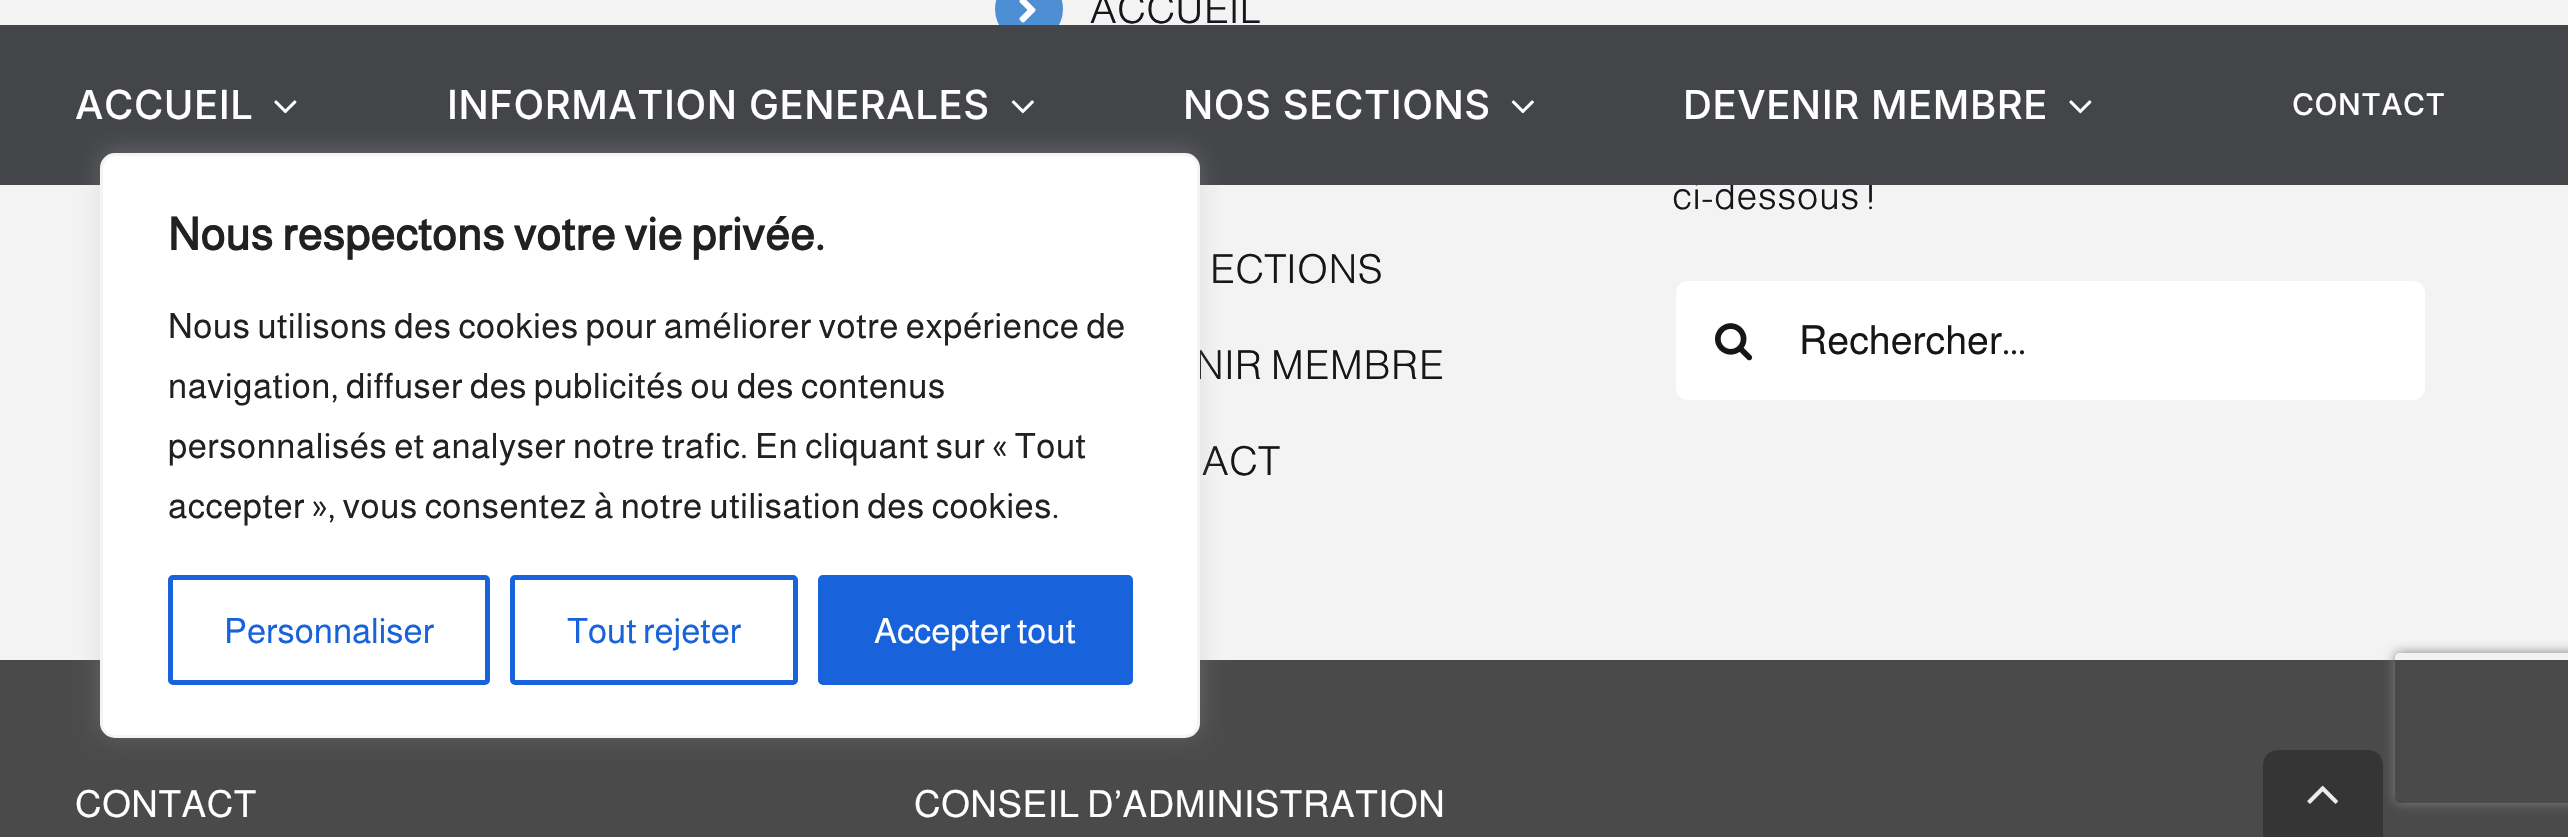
void draw(SkCanvas* c) {
SkPaint p;
p.setAntiAlias(true);
auto F=[&](const char* family, int weight, float size, bool italic = false){SkFontStyle style(weight, SkFontStyle::kNormal_Width,italic ? SkFontStyle::kItalic_Slant : SkFontStyle::kUpright_Slant);SkFont result(fontMgr->matchFamilyStyle(family, style), size);result.setSubpixel(true);return result;};
auto T=[&](const char* s, float x, float y, const SkFont& font){c->drawString(s, x, y, font, p);};
auto L=[&](const char* s, float x, float y, const SkFont& font, const SkPaint& ink, float letter, float word){std::vector<SkGlyphID> glyphs(font.countText(s, strlen(s), SkTextEncoding::kUTF8));std::vector<float> xs(glyphs.size());font.textToGlyphs(s, strlen(s), SkTextEncoding::kUTF8, glyphs);font.getXPos(glyphs, xs, x);float extra = 0;for (size_t i = 0; i < glyphs.size(); i++) {xs[i] += extra;extra += letter + word * (glyphs[i] == font.unicharToGlyph(' '));}c->drawTextBlob(SkTextBlob::MakeFromPosHGlyphs(glyphs, xs, y, font), 0, 0, ink);};
auto R=[&](float x, float y, float w, float h){c->drawRect(SkRect::MakeXYWH(x, y, w, h), p);};
auto I=[&](const char* path, float x, float y, float w, float h){auto image = SkImages::DeferredFromEncodedData(SkData::MakeFromFileName(path));c->drawImageRect(image, SkRect::MakeXYWH(x, y, w, h), SkSamplingOptions());};
auto P=[&](const char* data, bool evenOdd = false){SkPath result = *SkParsePath::FromSVGString(data);if (evenOdd) result.setFillType(SkPathFillType::kEvenOdd);return result;};
c->clear(0xfff3f3f3);
p.setColor(0xff4e8ed3);
c->drawCircle(1029,9,34,p);
I("1.png",1019,0,17,23);
auto f1 = F("Almarai",300,40);
p.setColor(0xff141617);
L("ACCUEIL",1090,23,f1,p,.55,0);
L("ECTIONS",1210,283,f1,p,.55,0);
L("NIR MEMBRE",1195,379,f1,p,.55,0);
L("ACT",1202,475,f1,p,.55,0);
auto f2 = F("Almarai",300,37.5);
L("ci-dessous !",1672,209,f2,p,.55,0);
p.setColor(0xffffffff);
c->drawRoundRect(SkRect::MakeXYWH(1674.5,279.5,752,122),13.5,13.5,p);
p.setStroke(true);
p.setStrokeWidth(3);
p.setColor(0xfff2f3f5);
c->drawRoundRect(SkRect::MakeXYWH(1674.5,279.5,752,122),13.5,13.5,p);
I("2.png",1715,323,38,38);
auto f3 = F("Almarai",400,40);
p.setStroke(false);
p.setColor(0xff141617);
T("Rechercher...",1799,354,f3);
p.setColor(0xff434549);
R(0,25,2568,160);
auto f4 = F("Inter",500,40);
p.setColor(0xffffffff);
L("ACCUEIL",75,119,f4,p,.6,0);
I("3.png",274,100,23,14);
L("INFORMATION GENERALES",447,119,f4,p,.6,0);
I("4.png",1011,100,23,14);
L("NOS SECTIONS",1183,119,f4,p,.6,0);
I("4.png",1511,100,23,14);
L("DEVENIR MEMBRE",1683,119,f4,p,.6,0);
I("3.png",2069,100,23,14);
auto f5 = F("Inter",500,30);
L("CONTACT",2292,115,f5,p,.5,0);
p.setColor(0xff4a4a4a);
R(0,660,2568,177);
auto f6 = F("Almarai",400,37.5);
p.setColor(0xffffffff);
L("CONTACT",75,817,f6,p,.55,0);
L("CONSEIL D’ADMINISTRATION",914,817,f6,p,.55,0);
p.setColor(0x4dacabab);
p.setMaskFilter(SkMaskFilter::MakeBlur(kNormal_SkBlurStyle, 12.5));
c->drawRoundRect(SkRect::MakeXYWH(100,150,1100,585),15,15,p);
p.setMaskFilter(nullptr);
p.setColor(0xffffffff);
c->drawRoundRect(SkRect::MakeXYWH(101.5,154.5,1097,582),13.5,13.5,p);
p.setStroke(true);
p.setColor(0xfff4f4f4);
c->drawRoundRect(SkRect::MakeXYWH(101.5,154.5,1097,582),13.5,13.5,p);
auto f7 = F("Almarai",700,45);
p.setStroke(false);
p.setColor(0xff212121);
L("Nous respectons votre vie privée.",168,250,f7,p,.55,0);
auto f8 = F("Almarai",400,35);
L("Nous utilisons des cookies pour améliorer votre expérience de",168,338,f8,p,.55,0);
L("navigation, diffuser des publicités ou des contenus",168,398,f8,p,.55,0);
L("personnalisés et analyser notre trafic. En cliquant sur « Tout",168,458,f8,p,.55,0);
L("accepter », vous consentez à notre utilisation des cookies.",168,518,f8,p,.55,0);
p.setStroke(true);
p.setStrokeWidth(5);
p.setColor(0xff1863dc);
c->drawRoundRect(SkRect::MakeXYWH(170.5,577.5,317,105),2.5,2.5,p);
p.setStroke(false);
T("Personnaliser",224,643,f8);
p.setStroke(true);
c->drawRoundRect(SkRect::MakeXYWH(512.5,577.5,283,105),2.5,2.5,p);
p.setStroke(false);
T("Tout rejeter",567,643,f8);
c->drawRoundRect(SkRect::MakeXYWH(820.5,577.5,310,105),2.5,2.5,p);
p.setStroke(true);
c->drawRoundRect(SkRect::MakeXYWH(820.5,577.5,310,105),2.5,2.5,p);
p.setStroke(false);
p.setColor(0xffffffff);
T("Accepter tout",874,643,f8);
c->save();
c->clipPath(P("M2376 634h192v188h-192zm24 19h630c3 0 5 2 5 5v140c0 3-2 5-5 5h-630c-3 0-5-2-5-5v-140c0-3 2-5 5-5z",true),true);
p.setColor(0xff808080);
p.setMaskFilter(SkMaskFilter::MakeBlur(kNormal_SkBlurStyle, 6));
c->drawRoundRect(SkRect::MakeXYWH(2395,653,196,150),5,5,p);
p.setMaskFilter(nullptr);
c->restore();
p.setColor(0xff353535);
c->drawPath(P("M2278 750h90c8.5 0 15 6.5 15 15v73h-120v-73c0-8.5 6.5-15 15-15z"),p);
I("5.png",2307,785,31,19);
}
